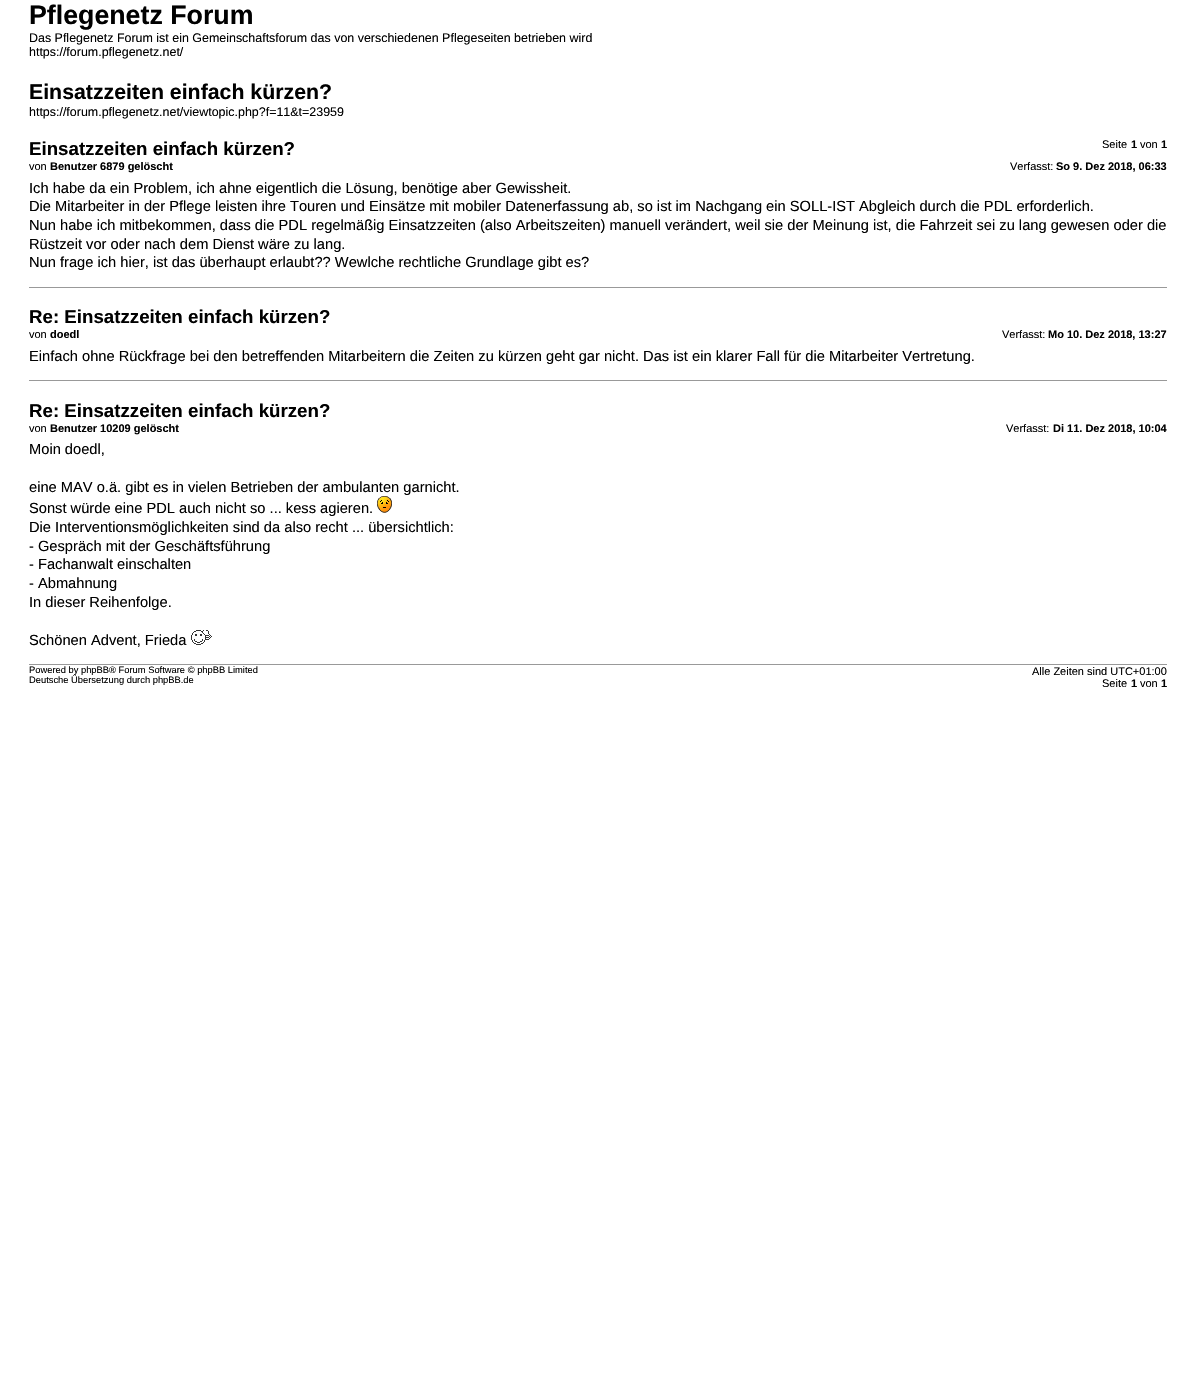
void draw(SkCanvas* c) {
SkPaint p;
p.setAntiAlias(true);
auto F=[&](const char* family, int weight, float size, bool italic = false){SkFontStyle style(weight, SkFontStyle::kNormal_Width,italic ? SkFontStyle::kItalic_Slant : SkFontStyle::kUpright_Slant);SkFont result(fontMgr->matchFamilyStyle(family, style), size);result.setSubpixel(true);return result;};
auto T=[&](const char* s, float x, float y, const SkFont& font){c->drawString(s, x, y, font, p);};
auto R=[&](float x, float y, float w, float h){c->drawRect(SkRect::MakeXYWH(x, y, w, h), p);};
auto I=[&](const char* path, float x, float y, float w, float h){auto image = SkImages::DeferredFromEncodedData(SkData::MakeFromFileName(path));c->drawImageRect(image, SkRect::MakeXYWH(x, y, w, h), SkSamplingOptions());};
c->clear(0xffffffff);
auto f1 = F("Liberation Sans",700,26.75);
p.setColor(0xff000000);
T("Pflegenetz Forum",29,24,f1);
auto f2 = F("Liberation Sans",400,12.45);
T("Das Pflegenetz Forum ist ein Gemeinschaftsforum das von verschiedenen Pflegeseiten betrieben wird",29,42,f2);
T("https://forum.pflegenetz.net/",29,56,f2);
auto f3 = F("Liberation Sans",700,21.3);
T("Einsatzzeiten einfach kürzen?",29,99,f3);
T("https://forum.pflegenetz.net/viewtopic.php?f=11&t=23959",29,116,f2);
auto f4 = F("Liberation Sans",400,11);
T("Seite",1102,148,f4);
auto f5 = F("Liberation Sans",700,11);
T("1",1131,148,f5);
T("von",1140,148,f4);
T("1",1161,148,f5);
auto f6 = F("Liberation Sans",700,18.7);
T("Einsatzzeiten einfach kürzen?",29,155,f6);
T("von",29,170,f4);
T("Benutzer 6879 gelöscht",50,170,f5);
T("Verfasst:",1010,170,f4);
T("So 9. Dez 2018, 06:33",1056,170,f5);
auto f7 = F("Liberation Sans",400,14.67);
T("Ich habe da ein Problem, ich ahne eigentlich die Lösung, benötige aber Gewissheit.",29,193,f7);
T("Die Mitarbeiter in der Pflege leisten ihre Touren und Einsätze mit mobiler Datenerfassung ab, so ist im Nachgang ein SOLL-IST Abgleich durch die PDL erforderlich.",29,211,f7);
T("Nun habe ich mitbekommen, dass die PDL regelmäßig Einsatzzeiten (also Arbeitszeiten) manuell verändert, weil sie der Meinung ist, die Fahrzeit sei zu lang gewesen oder die",29,230,f7);
T("Rüstzeit vor oder nach dem Dienst wäre zu lang.",29,249,f7);
T("Nun frage ich hier, ist das überhaupt erlaubt?\077 Wewlche rechtliche Grundlage gibt es?",29,267,f7);
p.setColor(0xff999999);
R(29,287,1138,1);
p.setColor(0xff000000);
T("Re: Einsatzzeiten einfach kürzen?",29,323,f6);
T("von",29,338,f4);
T("doedl",50,338,f5);
T("Verfasst:",1002,338,f4);
T("Mo 10. Dez 2018, 13:27",1048,338,f5);
T("Einfach ohne Rückfrage bei den betreffenden Mitarbeitern die Zeiten zu kürzen geht gar nicht. Das ist ein klarer Fall für die Mitarbeiter Vertretung.",29,361,f7);
p.setColor(0xff999999);
R(29,380,1138,1);
p.setColor(0xff000000);
T("Re: Einsatzzeiten einfach kürzen?",29,417,f6);
T("von",29,432,f4);
T("Benutzer 10209 gelöscht",50,432,f5);
T("Verfasst:",1006,432,f4);
T("Di 11. Dez 2018, 10:04",1053,432,f5);
T("Moin doedl,",29,454,f7);
T("eine MAV o.ä. gibt es in vielen Betrieben der ambulanten garnicht.",29,492,f7);
T("Sonst würde eine PDL auch nicht so ... kess agieren.",29,513,f7);
I("1.png",377,496,15,17);
T("Die Interventionsmöglichkeiten sind da also recht ... übersichtlich:",29,532,f7);
T("- Gespräch mit der Geschäftsführung",29,551,f7);
T("- Fachanwalt einschalten",29,569,f7);
T("- Abmahnung",29,588,f7);
T("In dieser Reihenfolge.",29,607,f7);
T("Schönen Advent, Frieda",29,645,f7);
I("2.png",191,630,21,15);
p.setColor(0xff999999);
R(29,664,1138,1);
auto f8 = F("Liberation Sans",400,9.35);
p.setColor(0xff000000);
T("Powered by phpBB® Forum Software © phpBB Limited",29,673,f8);
T("Deutsche Übersetzung durch phpBB.de",29,683,f8);
T("Alle Zeiten sind UTC+01:00",1032,675,f4);
T("Seite",1102,687,f4);
T("1",1131,687,f5);
T("von",1140,687,f4);
T("1",1161,687,f5);
}
